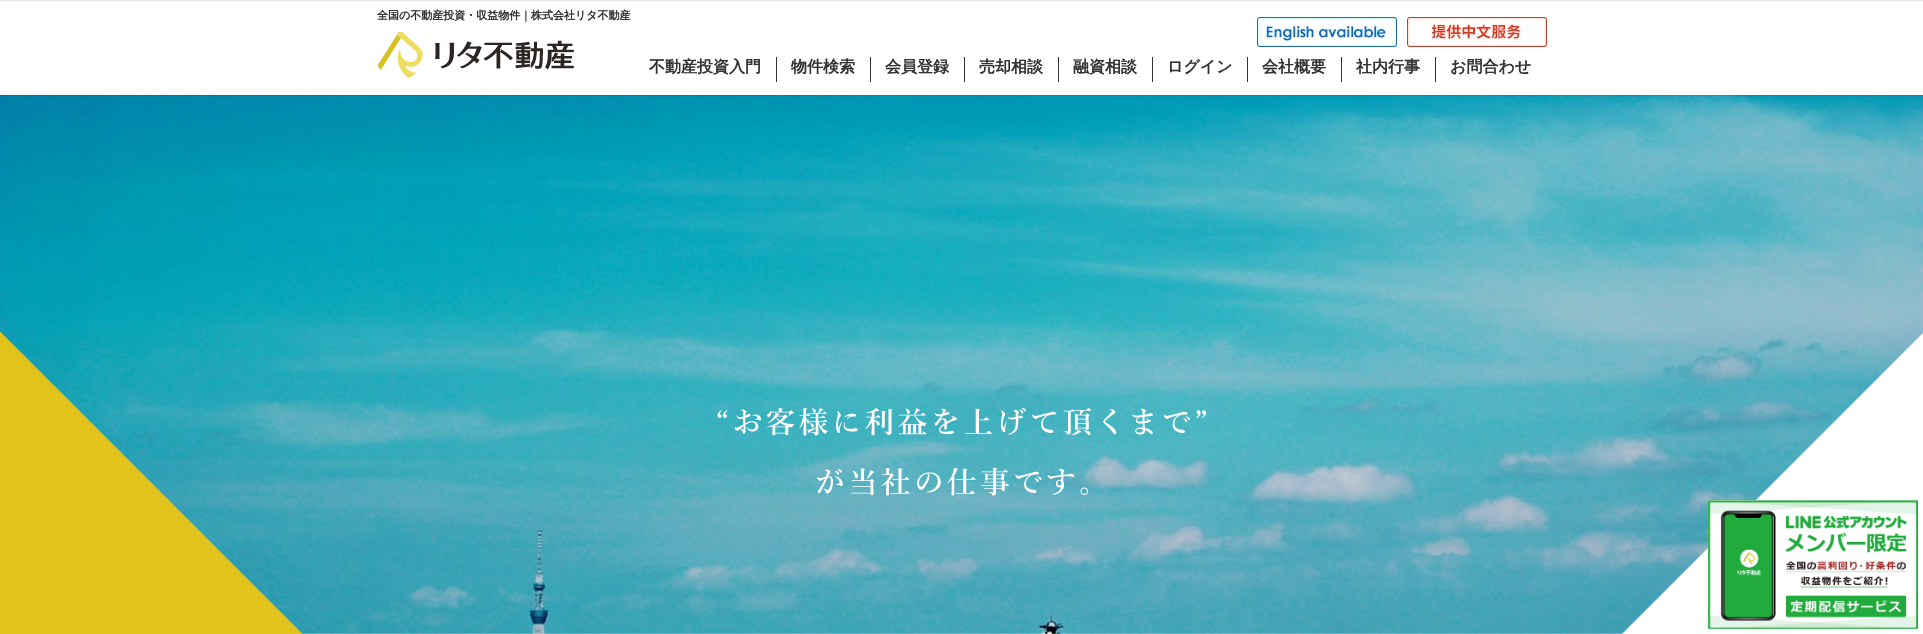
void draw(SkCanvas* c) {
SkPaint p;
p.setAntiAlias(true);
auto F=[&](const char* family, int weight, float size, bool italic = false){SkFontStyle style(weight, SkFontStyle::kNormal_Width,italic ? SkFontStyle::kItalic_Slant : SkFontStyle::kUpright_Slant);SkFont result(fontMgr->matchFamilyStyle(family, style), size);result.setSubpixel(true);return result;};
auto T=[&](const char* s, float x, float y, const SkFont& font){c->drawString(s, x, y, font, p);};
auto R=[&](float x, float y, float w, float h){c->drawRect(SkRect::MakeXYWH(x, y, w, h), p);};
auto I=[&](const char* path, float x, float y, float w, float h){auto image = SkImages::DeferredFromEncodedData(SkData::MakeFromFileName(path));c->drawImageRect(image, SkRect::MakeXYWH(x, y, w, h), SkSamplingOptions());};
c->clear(0xffffffff);
I("1.png",0,95,1923,539);
p.setColor(0x1a000000);
p.setMaskFilter(SkMaskFilter::MakeBlur(kNormal_SkBlurStyle, .5));
c->drawRect(SkRect::MakeXYWH(0,1,1923,95),p);
p.setMaskFilter(nullptr);
p.setColor(0xffffffff);
R(0,0,1923,95);
p.setColor(0x1a000000);
p.setMaskFilter(SkMaskFilter::MakeBlur(kNormal_SkBlurStyle, .5));
c->drawRect(SkRect::MakeXYWH(0,-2,1923,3),p);
p.setMaskFilter(nullptr);
auto f1 = F("WenQuanYi Zen Hei",700,11);
p.setColor(0xff333333);
T("全国の不動産投資・収益物件｜株式会社リタ不動産",377,19,f1);
I("2.png",377,32,197,46);
I("3.png",1257,17,140,30);
I("4.png",1407,17,140,30);
auto f2 = F("WenQuanYi Zen Hei",700,16);
T("不動産投資入門",649,72,f2);
R(776,57,1,25);
T("物件検索",791,72,f2);
R(870,57,1,25);
T("会員登録",885,72,f2);
R(964,57,1,25);
T("売却相談",979,72,f2);
R(1058,57,1,25);
T("融資相談",1073,72,f2);
R(1152,57,1,25);
T("ログイン",1167,72,f2);
R(1247,57,1,25);
T("会社概要",1262,72,f2);
R(1341,57,1,25);
T("社内行事",1356,72,f2);
R(1435,57,1,25);
T("お問合わせ",1450,72,f2);
I("5.png",0,331,1923,303);
I("6.png",717,407,489,89);
I("7.png",1708,500,210,129);
}
